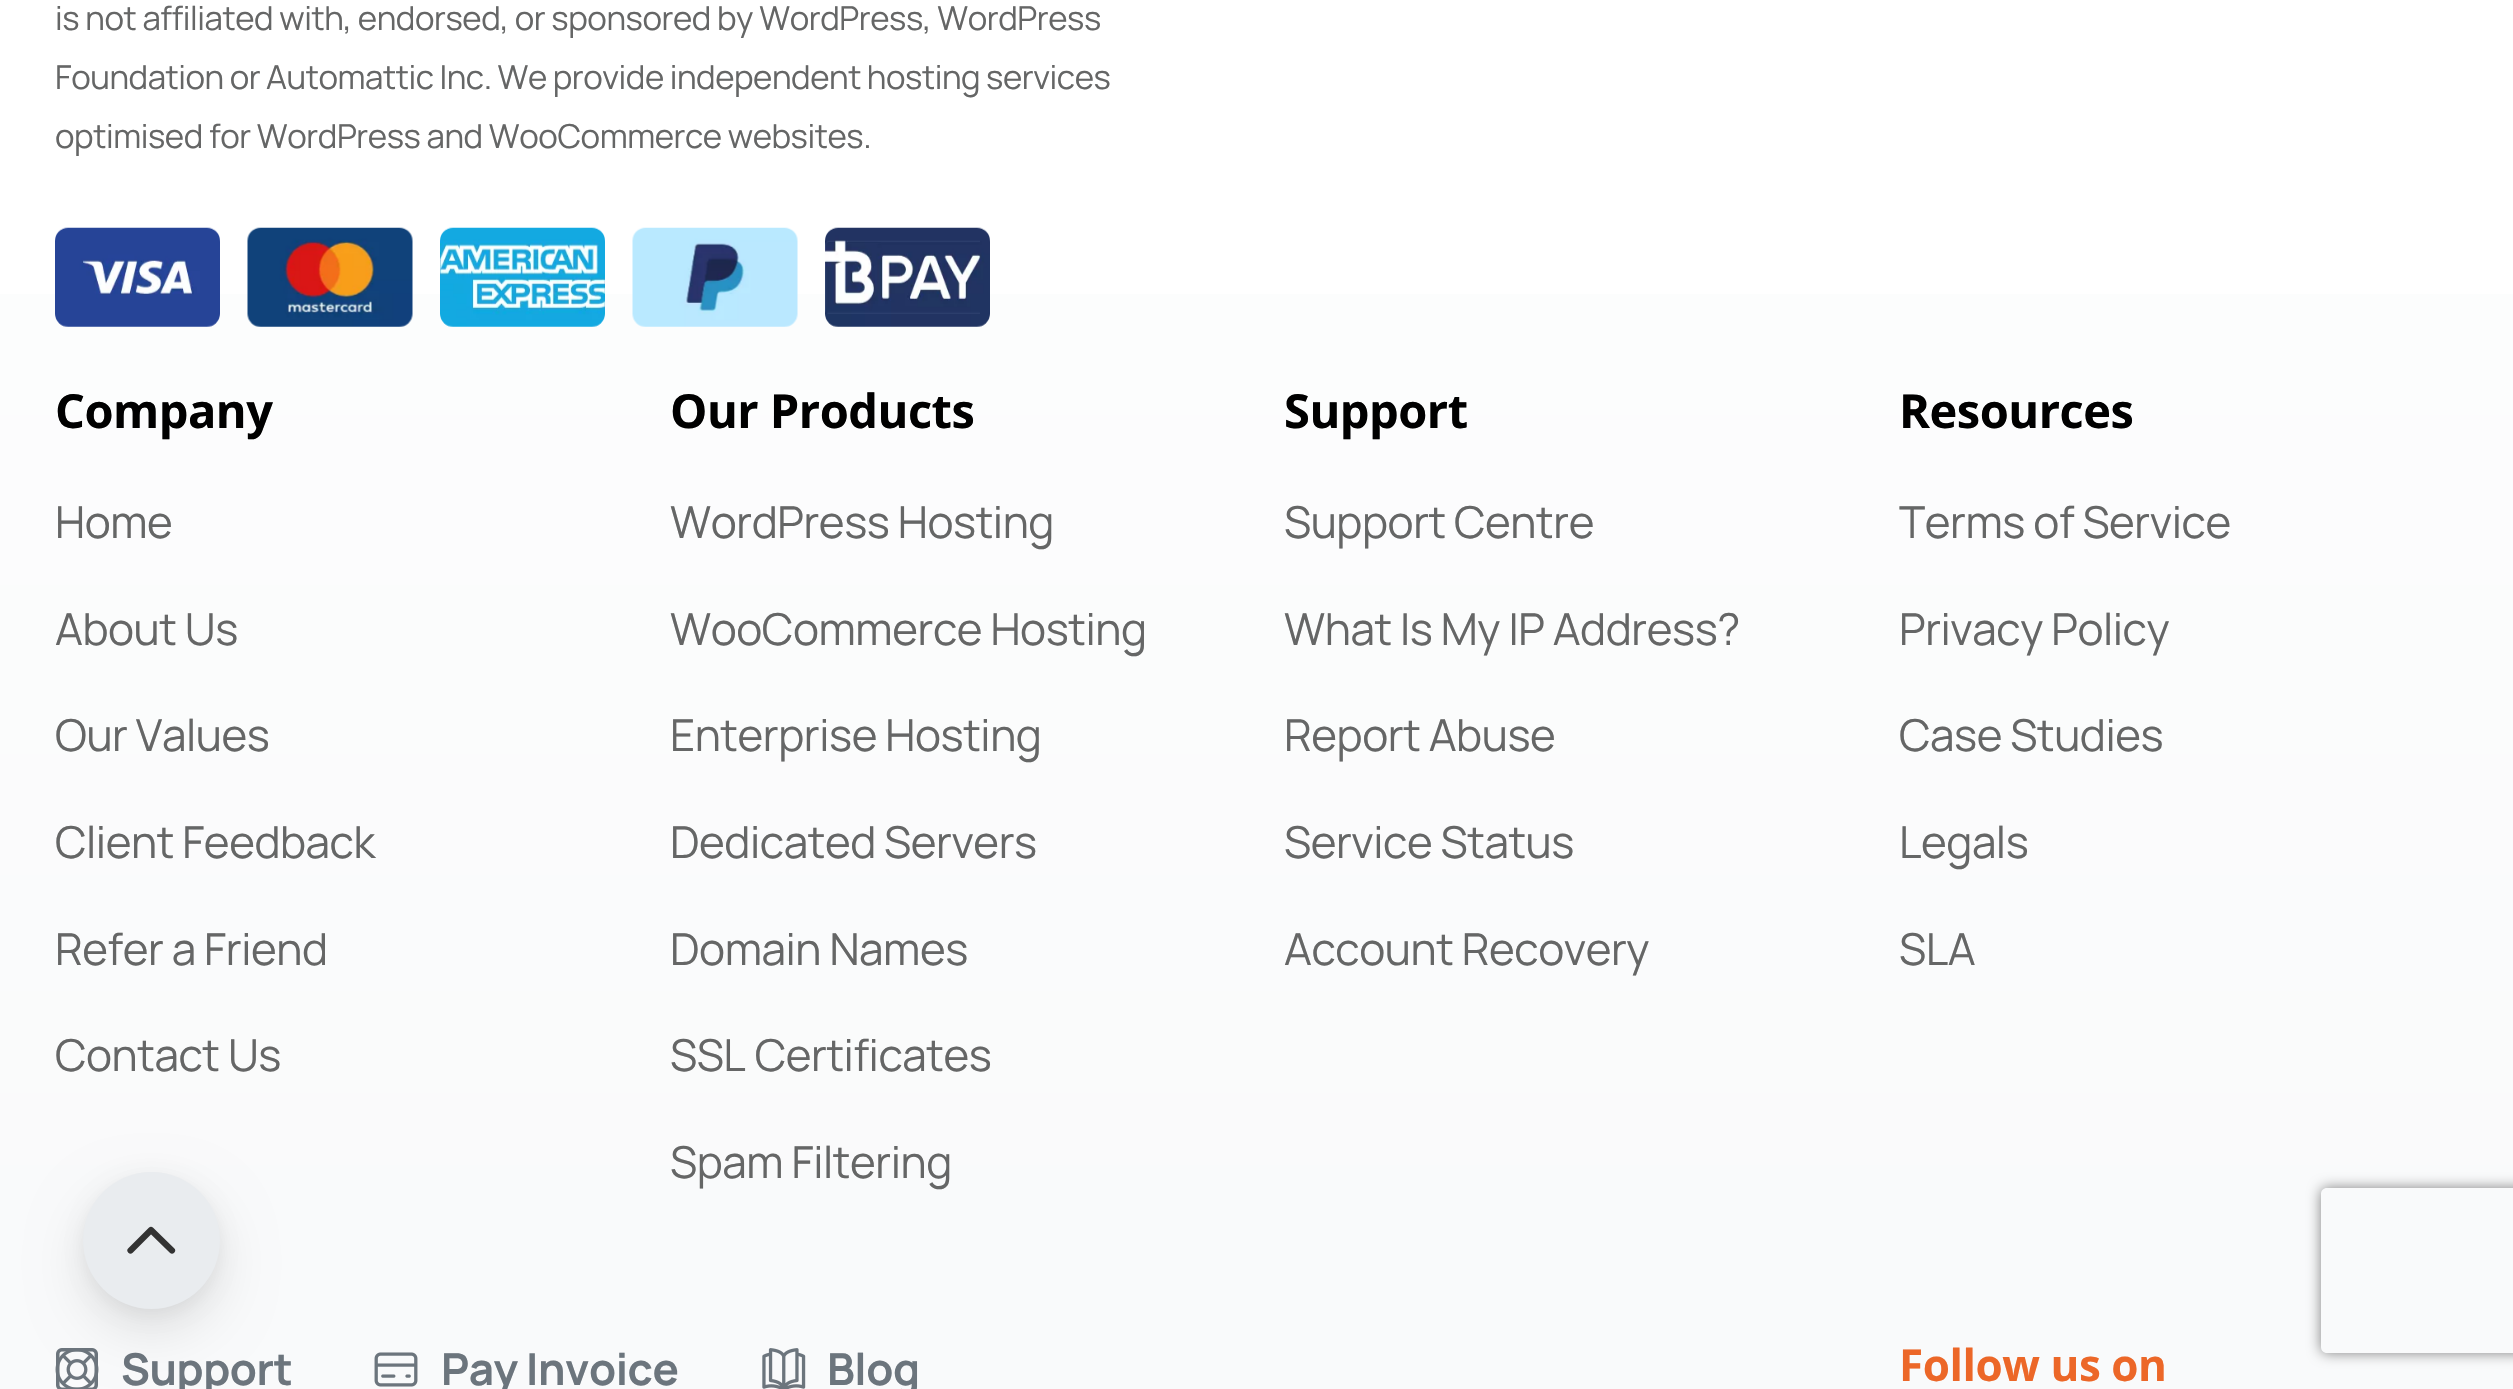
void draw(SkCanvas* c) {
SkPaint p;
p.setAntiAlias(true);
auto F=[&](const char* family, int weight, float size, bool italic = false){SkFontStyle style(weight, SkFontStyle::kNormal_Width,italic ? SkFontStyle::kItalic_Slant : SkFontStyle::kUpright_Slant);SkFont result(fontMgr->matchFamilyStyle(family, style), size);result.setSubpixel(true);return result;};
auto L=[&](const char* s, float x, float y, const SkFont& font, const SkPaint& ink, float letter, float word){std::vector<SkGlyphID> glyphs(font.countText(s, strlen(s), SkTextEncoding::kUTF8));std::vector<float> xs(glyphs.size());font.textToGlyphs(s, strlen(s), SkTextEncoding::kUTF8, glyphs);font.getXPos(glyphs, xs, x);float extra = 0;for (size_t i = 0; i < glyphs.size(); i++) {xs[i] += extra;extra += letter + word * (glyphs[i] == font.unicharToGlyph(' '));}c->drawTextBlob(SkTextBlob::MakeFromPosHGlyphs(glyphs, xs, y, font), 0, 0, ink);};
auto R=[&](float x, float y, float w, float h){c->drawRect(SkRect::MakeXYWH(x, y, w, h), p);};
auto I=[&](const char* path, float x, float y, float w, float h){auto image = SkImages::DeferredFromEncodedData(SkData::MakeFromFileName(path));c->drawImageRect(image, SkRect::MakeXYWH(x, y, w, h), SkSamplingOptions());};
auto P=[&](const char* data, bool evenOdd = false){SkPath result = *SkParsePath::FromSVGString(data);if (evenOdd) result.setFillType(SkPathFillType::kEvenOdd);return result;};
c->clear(0xffffffff);
auto f1 = F("Manrope",400,33);
p.setColor(0xff656666);
L("is not affiliated with, endorsed, or sponsored by WordPress, WordPress",55,30,f1,p,-.45,0);
L("Foundation or Automattic Inc. We provide independent hosting services",55,89,f1,p,-.45,-.25);
L("optimised for WordPress and WooCommerce websites.",55,148,f1,p,-.45,0);
{
const SkColor colors[] = {0xfff8f9fa,0xffffffff};
const float stops[] = {0,1};
const SkPoint ends[] = {{1257,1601}, {1257,-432}};
p.setShader(SkGradientShader::MakeLinear(ends, colors, stops, 2, SkTileMode::kClamp));
p.setAlpha(255);
}
R(0,294,2513,1095);
I("1.png",55,227,165,100);
I("2.png",247,227,166,100);
I("3.png",440,227,165,100);
I("4.png",632,227,166,100);
I("5.png",825,227,165,100);
auto f2 = F("Open Sans",700,47);
p.setShader(nullptr);
p.setColor(0xff000000);
L("Company",55,428,f2,p,-.5,0);
auto f3 = F("Manrope",400,44);
p.setColor(0xff656666);
L("Home",55,538,f3,p,-.45,0);
L("About Us",55,645,f3,p,-.45,0);
L("Our Values",55,751,f3,p,-.45,0);
L("Client Feedback",55,858,f3,p,-.45,0);
L("Refer a Friend",55,965,f3,p,-.45,0);
L("Contact Us",55,1071,f3,p,-.45,0);
p.setColor(0xff000000);
L("Our Products",670,428,f2,p,-.5,0);
p.setColor(0xff656666);
L("WordPress Hosting",670,538,f3,p,-.45,0);
L("WooCommerce Hosting",670,645,f3,p,-.45,0);
L("Enterprise Hosting",670,751,f3,p,-.45,0);
L("Dedicated Servers",670,858,f3,p,-.45,0);
L("Domain Names",670,965,f3,p,-.45,0);
L("SSL Certificates",670,1071,f3,p,-.45,1);
L("Spam Filtering",670,1178,f3,p,-.45,0);
p.setColor(0xff000000);
L("Support",1284,428,f2,p,-.5,0);
p.setColor(0xff656666);
L("Support Centre",1284,538,f3,p,-.45,0);
L("What Is My IP Address?",1284,645,f3,p,-.45,0);
L("Report Abuse",1284,751,f3,p,-.45,0);
L("Service Status",1284,858,f3,p,-.45,0);
L("Account Recovery",1284,965,f3,p,-.45,0);
p.setColor(0xff000000);
L("Resources",1899,428,f2,p,-.5,0);
p.setColor(0xff656666);
L("Terms of Service",1899,538,f3,p,-.45,0);
L("Privacy Policy",1899,645,f3,p,-.45,0);
L("Case Studies",1899,751,f3,p,-.45,0);
L("Legals",1899,858,f3,p,-.45,0);
L("SLA",1899,965,f3,p,-.45,0);
I("6.png",55,1348,44,41);
auto f4 = F("Manrope",700,44);
p.setColor(0xff6c757d);
L("Support",121,1385,f4,p,-.45,0);
I("7.png",374,1352,44,35);
L("Pay Invoice",441,1385,f4,p,-.45,0);
I("8.png",762,1348,44,41);
L("Blog",827,1385,f4,p,-.45,0);
auto f5 = F("Open Sans",700,44);
p.setColor(0xffec6728);
L("Follow us on",1899,1381,f5,p,-.45,0);
p.setColor(0x1a000000);
p.setMaskFilter(SkMaskFilter::MakeBlur(kNormal_SkBlurStyle, 26.5));
c->drawRoundRect(SkRect::MakeXYWH(83,1194,137,137),68.5,68.5,p);
p.setMaskFilter(nullptr);
p.setColor(0x0d000000);
p.setMaskFilter(SkMaskFilter::MakeBlur(kNormal_SkBlurStyle, 8));
c->drawRoundRect(SkRect::MakeXYWH(83,1177,137,138),68.5,68.5,p);
p.setMaskFilter(nullptr);
p.setColor(0xffe9ecef);
c->drawCircle(151.5,1240.5,68.5,p);
p.setStroke(true);
p.setStrokeWidth(6.2);
p.setStrokeCap(SkPaint::kRound_Cap);
p.setStrokeJoin(SkPaint::kRound_Join);
p.setColor(0xff333333);
c->drawPath(P("M130.5 1250.5l20.5-20.5l21 20.5"),p);
c->save();
c->clipPath(P("M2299 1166h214v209h-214zm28 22h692c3.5 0 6 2.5 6 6v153c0 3.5-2.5 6-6 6h-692c-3.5 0-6-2.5-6-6v-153c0-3.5 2.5-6 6-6z",true),true);
p.setStroke(false);
p.setColor(0xff808080);
p.setMaskFilter(SkMaskFilter::MakeBlur(kNormal_SkBlurStyle, 7));
c->drawRoundRect(SkRect::MakeXYWH(2321,1188,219,165),6,6,p);
p.setMaskFilter(nullptr);
c->restore();
}
